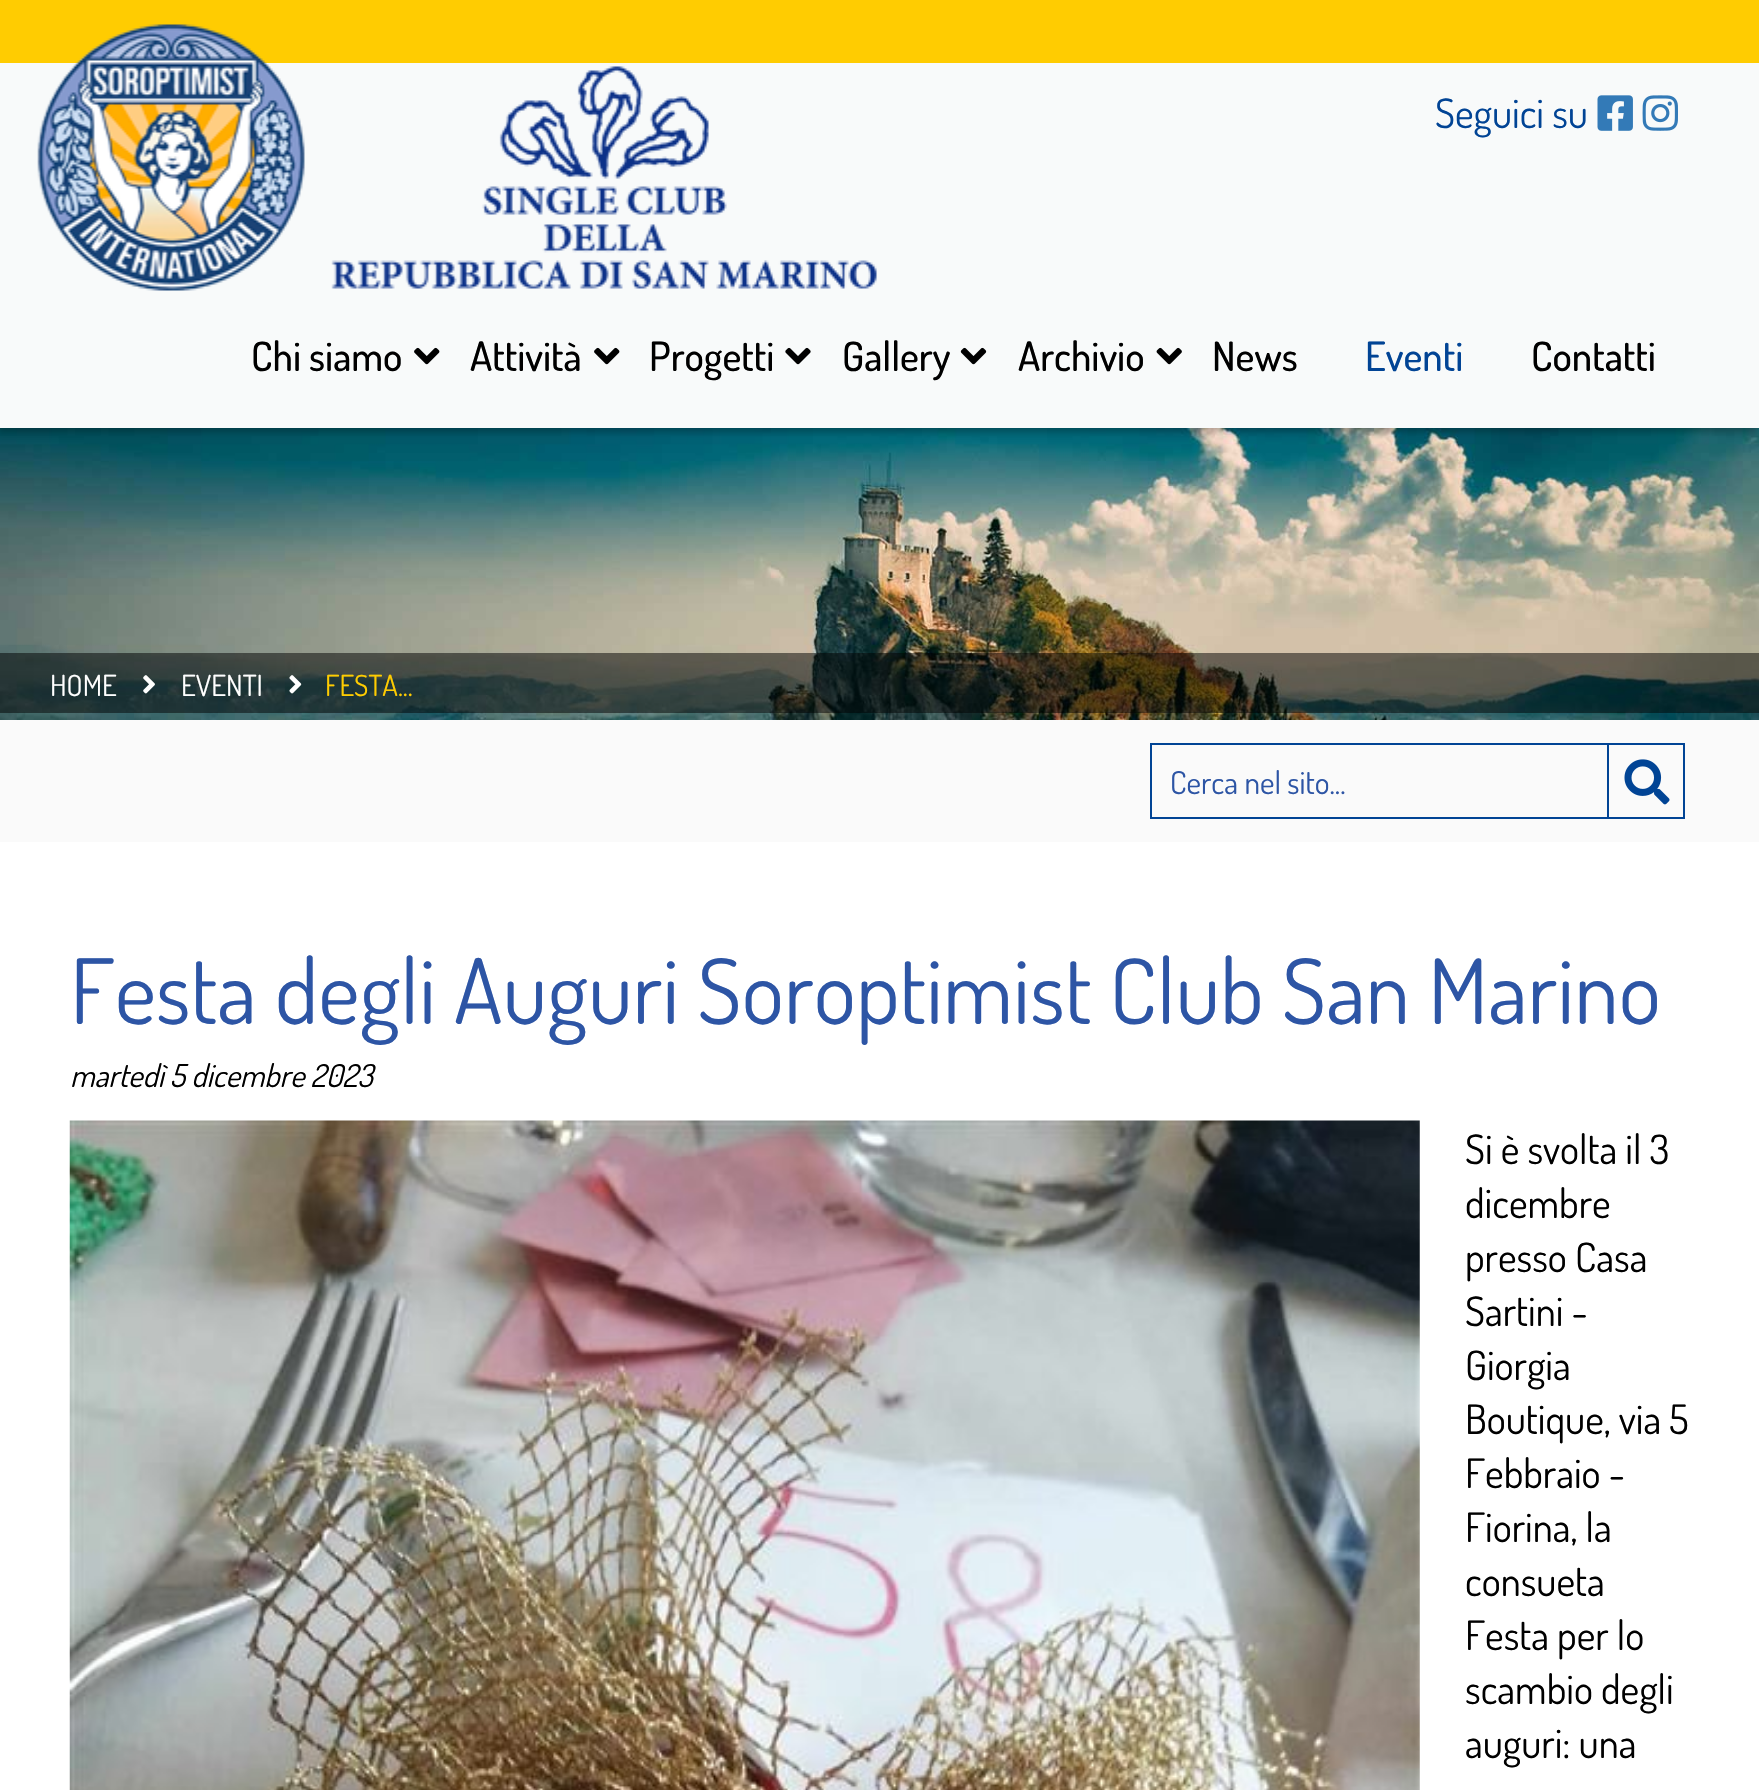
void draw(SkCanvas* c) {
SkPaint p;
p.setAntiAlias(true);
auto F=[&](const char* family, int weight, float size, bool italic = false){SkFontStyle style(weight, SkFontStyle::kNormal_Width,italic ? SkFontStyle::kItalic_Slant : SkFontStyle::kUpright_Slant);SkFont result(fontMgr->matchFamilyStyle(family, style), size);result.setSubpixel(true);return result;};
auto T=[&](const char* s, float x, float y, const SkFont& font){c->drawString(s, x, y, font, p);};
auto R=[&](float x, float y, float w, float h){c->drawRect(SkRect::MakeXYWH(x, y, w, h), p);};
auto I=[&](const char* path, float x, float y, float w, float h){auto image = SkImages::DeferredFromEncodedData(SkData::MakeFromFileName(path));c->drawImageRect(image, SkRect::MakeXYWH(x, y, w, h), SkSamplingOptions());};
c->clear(0xffffffff);
I("8.png",0,428,1759,292);
p.setColor(0x45000000);
p.setMaskFilter(SkMaskFilter::MakeBlur(kNormal_SkBlurStyle, 3.5));
c->drawRect(SkRect::MakeXYWH(-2,68,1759,364),p);
p.setMaskFilter(nullptr);
p.setColor(0xffffcc01);
R(0,0,1759,63);
p.setColor(0xfff8fafa);
R(0,63,1759,365);
I("1.png",37,24,840,267);
auto f1 = F("Dosis",400,40.5);
p.setColor(0xff014495);
T("Seguici su",1435,128,f1);
I("2.png",1597,95,36,36);
I("3.png",1642,95,36,36);
auto f2 = F("Dosis",500,40.5);
p.setColor(0xff000000);
T("Chi siamo",251,371,f2);
I("4.png",414,347,26,18);
T("Attività",470,371,f2);
I("4.png",594,347,26,18);
T("Progetti",649,371,f2);
I("5.png",785,347,26,18);
T("Gallery",842,371,f2);
I("6.png",960,347,27,18);
T("Archivio",1018,371,f2);
I("7.png",1156,347,26,18);
T("News",1212,371,f2);
p.setColor(0xff014495);
T("Eventi",1365,371,f2);
p.setColor(0xff000000);
T("Contatti",1531,371,f2);
p.setColor(0x80000000);
R(0,653,1759,60);
auto f3 = F("Dosis",400,29);
p.setColor(0xffffffff);
T("HOME",50,696,f3);
I("9.png",143,675,12,19);
T("EVENTI",181,696,f3);
I("10.png",289,675,13,19);
p.setColor(0xffffcc01);
T("FESTA...",325,696,f3);
p.setColor(0xfffafafa);
R(0,720,1759,122);
p.setStroke(true);
p.setStrokeWidth(2);
p.setColor(0xff014495);
c->drawRect(SkRect::MakeXYWH(1151,744,457,74),p);
auto f4 = F("Dosis",400,31.5);
p.setStroke(false);
p.setColor(0xff2d55a5);
T("Cerca nel sito...",1170,794,f4);
p.setColor(0xff014495);
R(1609,743,76,2);
R(1683,743,2,76);
R(1609,817,76,2);
I("11.png",1624,759,46,46);
auto f5 = F("Dosis",400,90);
p.setColor(0xff2d55a5);
T("Festa degli Auguri Soroptimist Club San Marino",70,1024,f5);
auto f6 = F("Dosis",400,31.5,true);
p.setColor(0xff000000);
T("martedì 5 dicembre 2023",70,1087,f6);
I("12.png",69,1120,1351,670);
T("Si è svolta il 3",1465,1164,f1);
T("dicembre",1465,1218,f1);
T("presso Casa",1465,1272,f1);
T("Sartini -",1465,1326,f1);
T("Giorgia",1465,1380,f1);
T("Boutique, via 5",1465,1434,f1);
T("Febbraio -",1465,1488,f1);
T("Fiorina, la",1465,1542,f1);
T("consueta",1465,1596,f1);
T("Festa per lo",1465,1650,f1);
T("scambio degli",1465,1704,f1);
T("auguri: una",1465,1758,f1);
}
